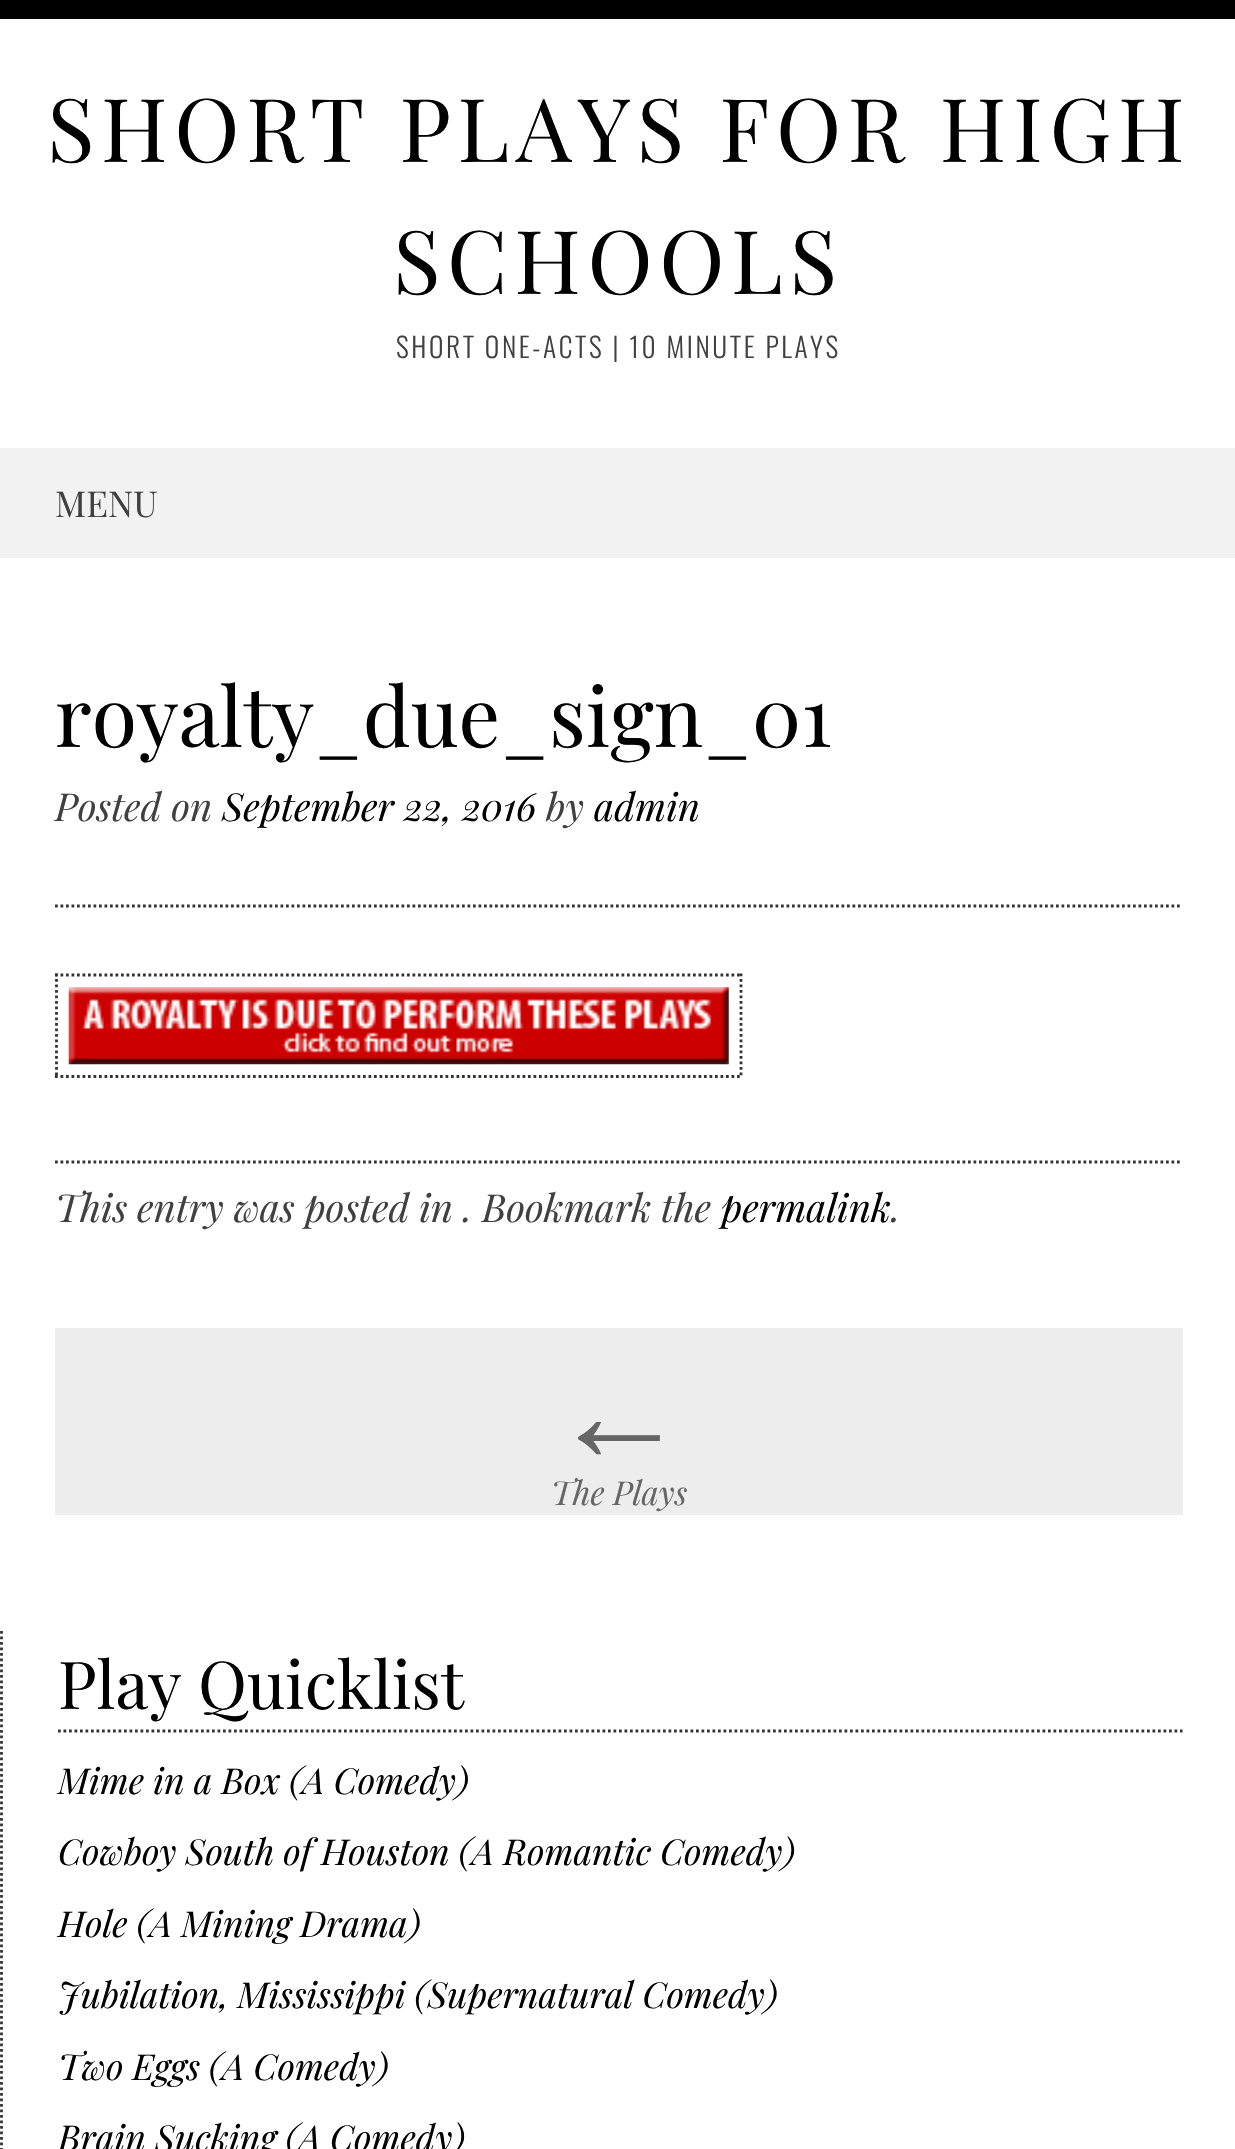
void draw(SkCanvas* c) {
SkPaint p;
p.setAntiAlias(true);
auto F=[&](const char* family, int weight, float size, bool italic = false){SkFontStyle style(weight, SkFontStyle::kNormal_Width,italic ? SkFontStyle::kItalic_Slant : SkFontStyle::kUpright_Slant);SkFont result(fontMgr->matchFamilyStyle(family, style), size);result.setSubpixel(true);return result;};
auto T=[&](const char* s, float x, float y, const SkFont& font){c->drawString(s, x, y, font, p);};
auto L=[&](const char* s, float x, float y, const SkFont& font, const SkPaint& ink, float letter, float word){std::vector<SkGlyphID> glyphs(font.countText(s, strlen(s), SkTextEncoding::kUTF8));std::vector<float> xs(glyphs.size());font.textToGlyphs(s, strlen(s), SkTextEncoding::kUTF8, glyphs);font.getXPos(glyphs, xs, x);float extra = 0;for (size_t i = 0; i < glyphs.size(); i++) {xs[i] += extra;extra += letter + word * (glyphs[i] == font.unicharToGlyph(' '));}c->drawTextBlob(SkTextBlob::MakeFromPosHGlyphs(glyphs, xs, y, font), 0, 0, ink);};
auto R=[&](float x, float y, float w, float h){c->drawRect(SkRect::MakeXYWH(x, y, w, h), p);};
auto I=[&](const char* path, float x, float y, float w, float h){auto image = SkImages::DeferredFromEncodedData(SkData::MakeFromFileName(path));c->drawImageRect(image, SkRect::MakeXYWH(x, y, w, h), SkSamplingOptions());};
auto P=[&](const char* data, bool evenOdd = false){SkPath result = *SkParsePath::FromSVGString(data);if (evenOdd) result.setFillType(SkPathFillType::kEvenOdd);return result;};
c->clear(0xffffffff);
p.setColor(0xff000000);
R(0,0,1235,19);
auto f1 = F("Playfair Display",400,88);
L("SHORT PLAYS FOR HIGH",47,162,f1,p,6.6,0);
L("SCHOOLS",393,294,f1,p,6.6,0);
auto f2 = F("Oswald",300,27.5);
p.setColor(0xff404040);
L("SHORT ONE-ACTS | 10 MINUTE PLAYS",396,358,f2,p,2.6,0);
p.setColor(0xfff2f2f2);
R(0,448,1235,110);
auto f3 = F("Playfair Display",400,35.75);
p.setColor(0xff404040);
T("MENU",55,517,f3);
p.setStroke(true);
p.setStrokeWidth(2.8);
p.setColor(0xff333333);
p.setPathEffect(SkDashPathEffect::Make({{2.75f,2.75f}}, 0));
c->drawPath(P("M55 906h1127.5"),p);
p.setPathEffect(nullptr);
auto f4 = F("Playfair Display",400,82.5);
p.setStroke(false);
p.setColor(0xff000000);
T("royalty_due_sign_01",55,747,f4);
auto f5 = F("Playfair Display",400,38.5,true);
p.setColor(0xff404040);
T("Posted on",55,821,f5);
p.setColor(0xff000000);
T("September 22, 2016",222,821,f5);
p.setColor(0xff404040);
T("by",546,821,f5);
p.setColor(0xff000000);
T("admin",594,821,f5);
p.setStroke(true);
p.setColor(0xff333333);
p.setPathEffect(SkDashPathEffect::Make({{2.75f,2.75f}}, 0));
c->drawPath(P("M55 1162h1127.5"),p);
p.setPathEffect(nullptr);
p.setPathEffect(SkDashPathEffect::Make({{2.75f,2.75f}}, 0));
c->drawPath(P("M55 975h687.5"),p);
p.setPathEffect(nullptr);
p.setPathEffect(SkDashPathEffect::Make({{2.75f,2.75f}}, 0));
c->drawPath(P("M741 973.5v104.5"),p);
p.setPathEffect(nullptr);
p.setPathEffect(SkDashPathEffect::Make({{2.75f,2.75f}}, 0));
c->drawPath(P("M55 1076.5h687.5"),p);
p.setPathEffect(nullptr);
p.setPathEffect(SkDashPathEffect::Make({{2.75f,2.75f}}, 0));
c->drawPath(P("M56.5 973.5v104.5"),p);
p.setPathEffect(nullptr);
I("1.png",68,987,661,78);
p.setStroke(false);
p.setColor(0xff404040);
T("This entry was posted in . Bookmark the",55,1222,f5);
p.setColor(0xff000000);
T("permalink",721,1222,f5);
p.setColor(0xff404040);
T(".",891,1222,f5);
p.setColor(0xffededed);
R(55,1328,1128,187);
auto f6 = F("Liberation Sans",400,138,true);
p.setColor(0xff666666);
T("←",550,1461,f6);
auto f7 = F("Playfair Display",400,33,true);
T("The Plays",551,1505,f7);
p.setStroke(true);
p.setColor(0xff333333);
p.setPathEffect(SkDashPathEffect::Make({{2.75f,2.75f}}, 0));
c->drawPath(P("M1.5 1631v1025.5"),p);
p.setPathEffect(nullptr);
p.setPathEffect(SkDashPathEffect::Make({{2.75f,2.75f}}, 0));
c->drawPath(P("M58 1731h1124.5"),p);
p.setPathEffect(nullptr);
auto f8 = F("Playfair Display",400,66);
p.setStroke(false);
p.setColor(0xff000000);
T("Play Quicklist",58,1709,f8);
auto f9 = F("Playfair Display",400,35.75,true);
T("Mime in a Box (A Comedy)",58,1794,f9);
T("Cowboy South of Houston (A Romantic Comedy)",58,1865,f9);
T("Hole (A Mining Drama)",58,1937,f9);
T("Jubilation, Mississippi (Supernatural Comedy)",58,2008,f9);
T("Two Eggs (A Comedy)",58,2080,f9);
T("Brain Sucking (A Comedy)",58,2151,f9);
}
